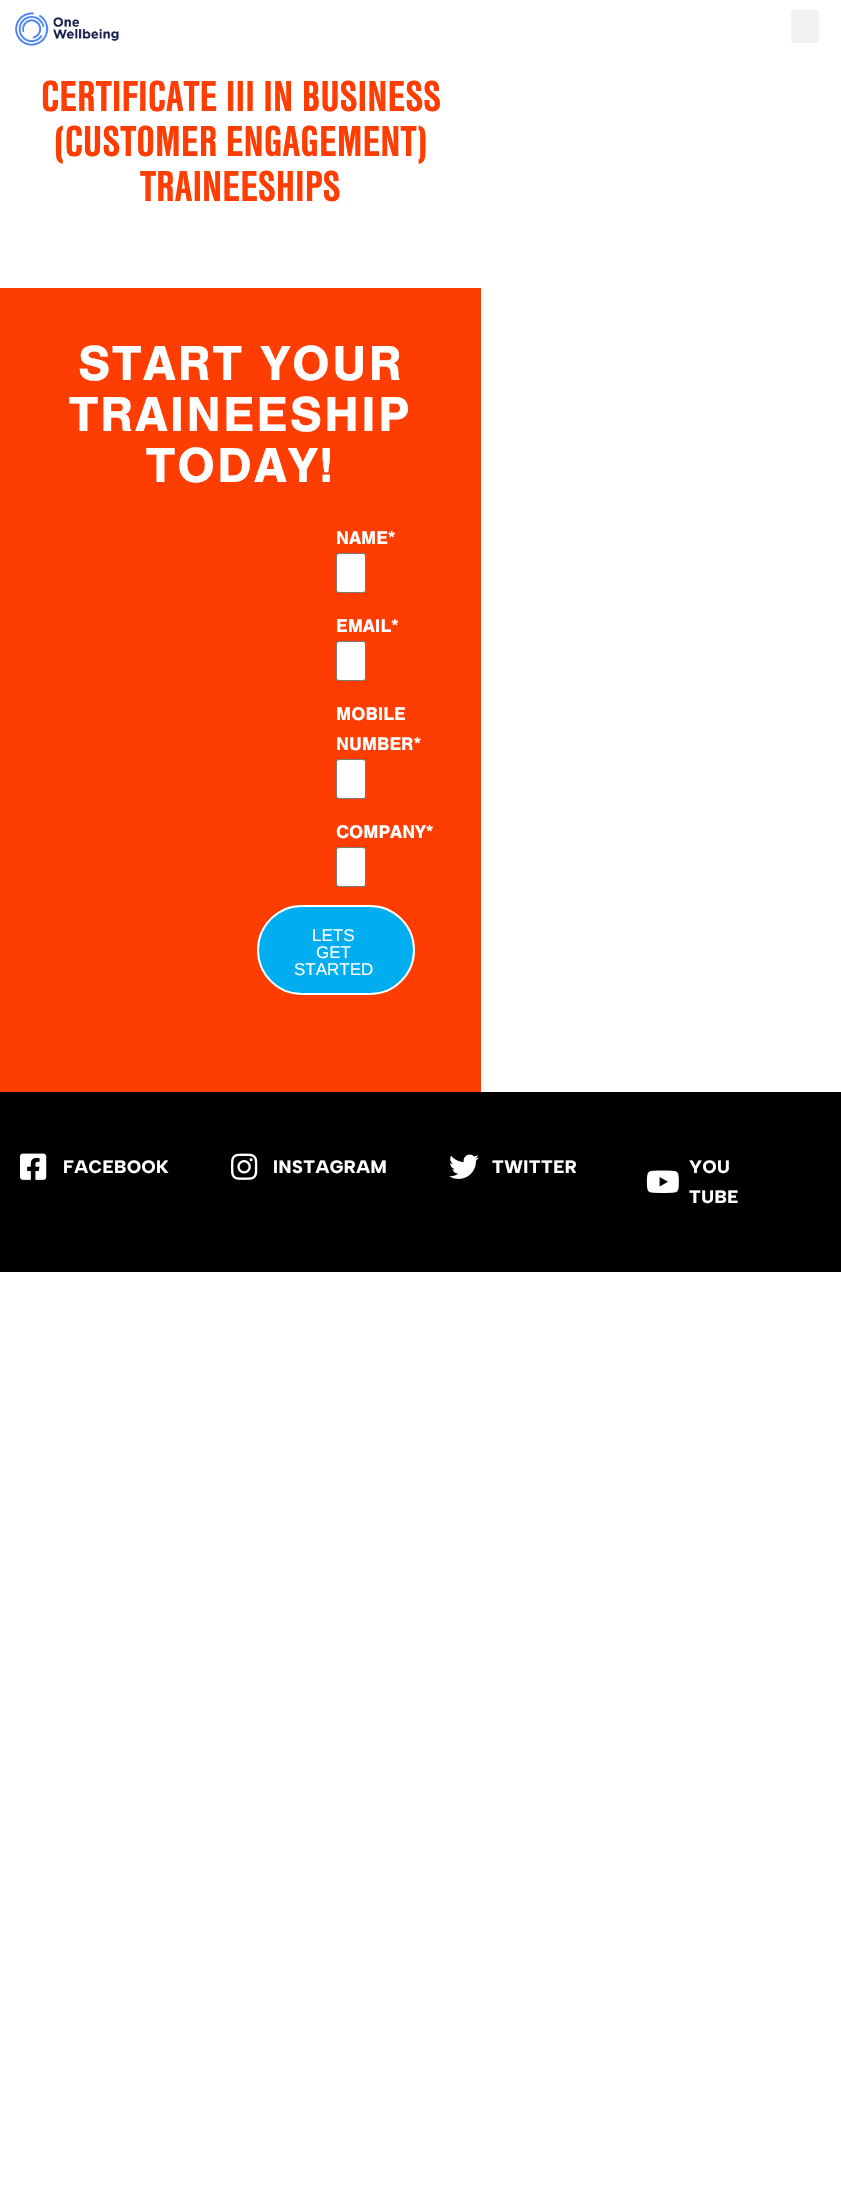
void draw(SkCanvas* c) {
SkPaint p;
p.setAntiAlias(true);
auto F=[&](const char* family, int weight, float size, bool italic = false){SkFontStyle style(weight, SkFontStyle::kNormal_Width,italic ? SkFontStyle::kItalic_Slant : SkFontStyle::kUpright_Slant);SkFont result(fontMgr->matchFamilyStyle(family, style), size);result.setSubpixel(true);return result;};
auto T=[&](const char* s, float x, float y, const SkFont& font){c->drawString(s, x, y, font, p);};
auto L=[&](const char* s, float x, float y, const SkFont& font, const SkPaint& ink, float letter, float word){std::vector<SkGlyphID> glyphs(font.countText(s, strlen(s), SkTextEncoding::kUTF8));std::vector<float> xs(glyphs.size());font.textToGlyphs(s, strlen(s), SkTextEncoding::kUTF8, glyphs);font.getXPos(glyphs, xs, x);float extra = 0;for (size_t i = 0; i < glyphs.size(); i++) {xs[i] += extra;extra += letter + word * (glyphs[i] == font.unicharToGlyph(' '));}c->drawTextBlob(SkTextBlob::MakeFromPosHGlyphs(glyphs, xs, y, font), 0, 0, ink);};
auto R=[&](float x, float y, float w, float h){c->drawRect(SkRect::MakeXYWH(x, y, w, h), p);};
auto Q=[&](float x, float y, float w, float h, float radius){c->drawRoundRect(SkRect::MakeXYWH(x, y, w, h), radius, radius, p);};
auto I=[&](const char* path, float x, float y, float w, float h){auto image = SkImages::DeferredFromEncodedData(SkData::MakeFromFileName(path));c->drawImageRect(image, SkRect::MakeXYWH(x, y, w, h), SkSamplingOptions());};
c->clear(0xffffffff);
I("1.png",15,12,104,34);
p.setColor(0xfff2f2f2);
Q(791,10,28,33,3);
auto f1 = F("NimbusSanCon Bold",700,45);
p.setColor(0xfffe3d03);
T("CERTIFICATE III IN BUSINESS",41,111,f1);
T("(CUSTOMER ENGAGEMENT)",54,156,f1);
T("TRAINEESHIPS",140,201,f1);
R(0,288,481,804);
auto f2 = F("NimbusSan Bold",700,51);
p.setColor(0xffffffff);
L("START YOUR",78,380,f2,p,2,0);
L("TRAINEESHIP",69,431,f2,p,2,0);
L("TODAY!",146,482,f2,p,2,0);
auto f3 = F("NimbusSan Bold",700,19);
T("NAME*",336,544,f3);
c->drawRoundRect(SkRect::MakeXYWH(336.5,553.5,29,39),2.5,2.5,p);
p.setStroke(true);
p.setStrokeWidth(1);
p.setColor(0xff7a7a7a);
c->drawRoundRect(SkRect::MakeXYWH(336.5,553.5,29,39),2.5,2.5,p);
p.setStroke(false);
p.setColor(0xffffffff);
T("EMAIL*",336,632,f3);
c->drawRoundRect(SkRect::MakeXYWH(336.5,641.5,29,39),2.5,2.5,p);
p.setStroke(true);
p.setColor(0xff7a7a7a);
c->drawRoundRect(SkRect::MakeXYWH(336.5,641.5,29,39),2.5,2.5,p);
p.setStroke(false);
p.setColor(0xffffffff);
T("MOBILE",336,720,f3);
T("NUMBER*",336,750,f3);
c->drawRoundRect(SkRect::MakeXYWH(336.5,759.5,29,39),2.5,2.5,p);
p.setStroke(true);
p.setColor(0xff7a7a7a);
c->drawRoundRect(SkRect::MakeXYWH(336.5,759.5,29,39),2.5,2.5,p);
p.setStroke(false);
p.setColor(0xffffffff);
T("COMPANY*",336,838,f3);
c->drawRoundRect(SkRect::MakeXYWH(336.5,847.5,29,39),2.5,2.5,p);
p.setStroke(true);
p.setColor(0xff7a7a7a);
c->drawRoundRect(SkRect::MakeXYWH(336.5,847.5,29,39),2.5,2.5,p);
p.setStroke(false);
p.setColor(0xff00aeef);
c->drawRoundRect(SkRect::MakeXYWH(258,906,156,88),44,44,p);
p.setStroke(true);
p.setStrokeWidth(2);
p.setColor(0xffffffff);
c->drawRoundRect(SkRect::MakeXYWH(258,906,156,88),44,44,p);
auto f4 = F("Liberation Sans",400,17);
p.setStroke(false);
T("LETS",312,941,f4);
T("GET",316,958,f4);
T("STARTED",294,975,f4);
p.setColor(0xff000000);
R(0,1092,841,180);
I("2.png",20,1153,27,27);
auto f5 = F("Albert Sans",800,18);
p.setColor(0xffffffff);
L("FACEBOOK",63,1173,f5,p,.5,0);
I("3.png",231,1153,27,27);
L("INSTAGRAM",273,1173,f5,p,.5,0);
I("4.png",449,1154,30,25);
L("TWITTER",492,1173,f5,p,.5,0);
I("5.png",646,1170,33,23);
L("YOU",689,1173,f5,p,.5,0);
L("TUBE",689,1203,f5,p,.5,0);
}
